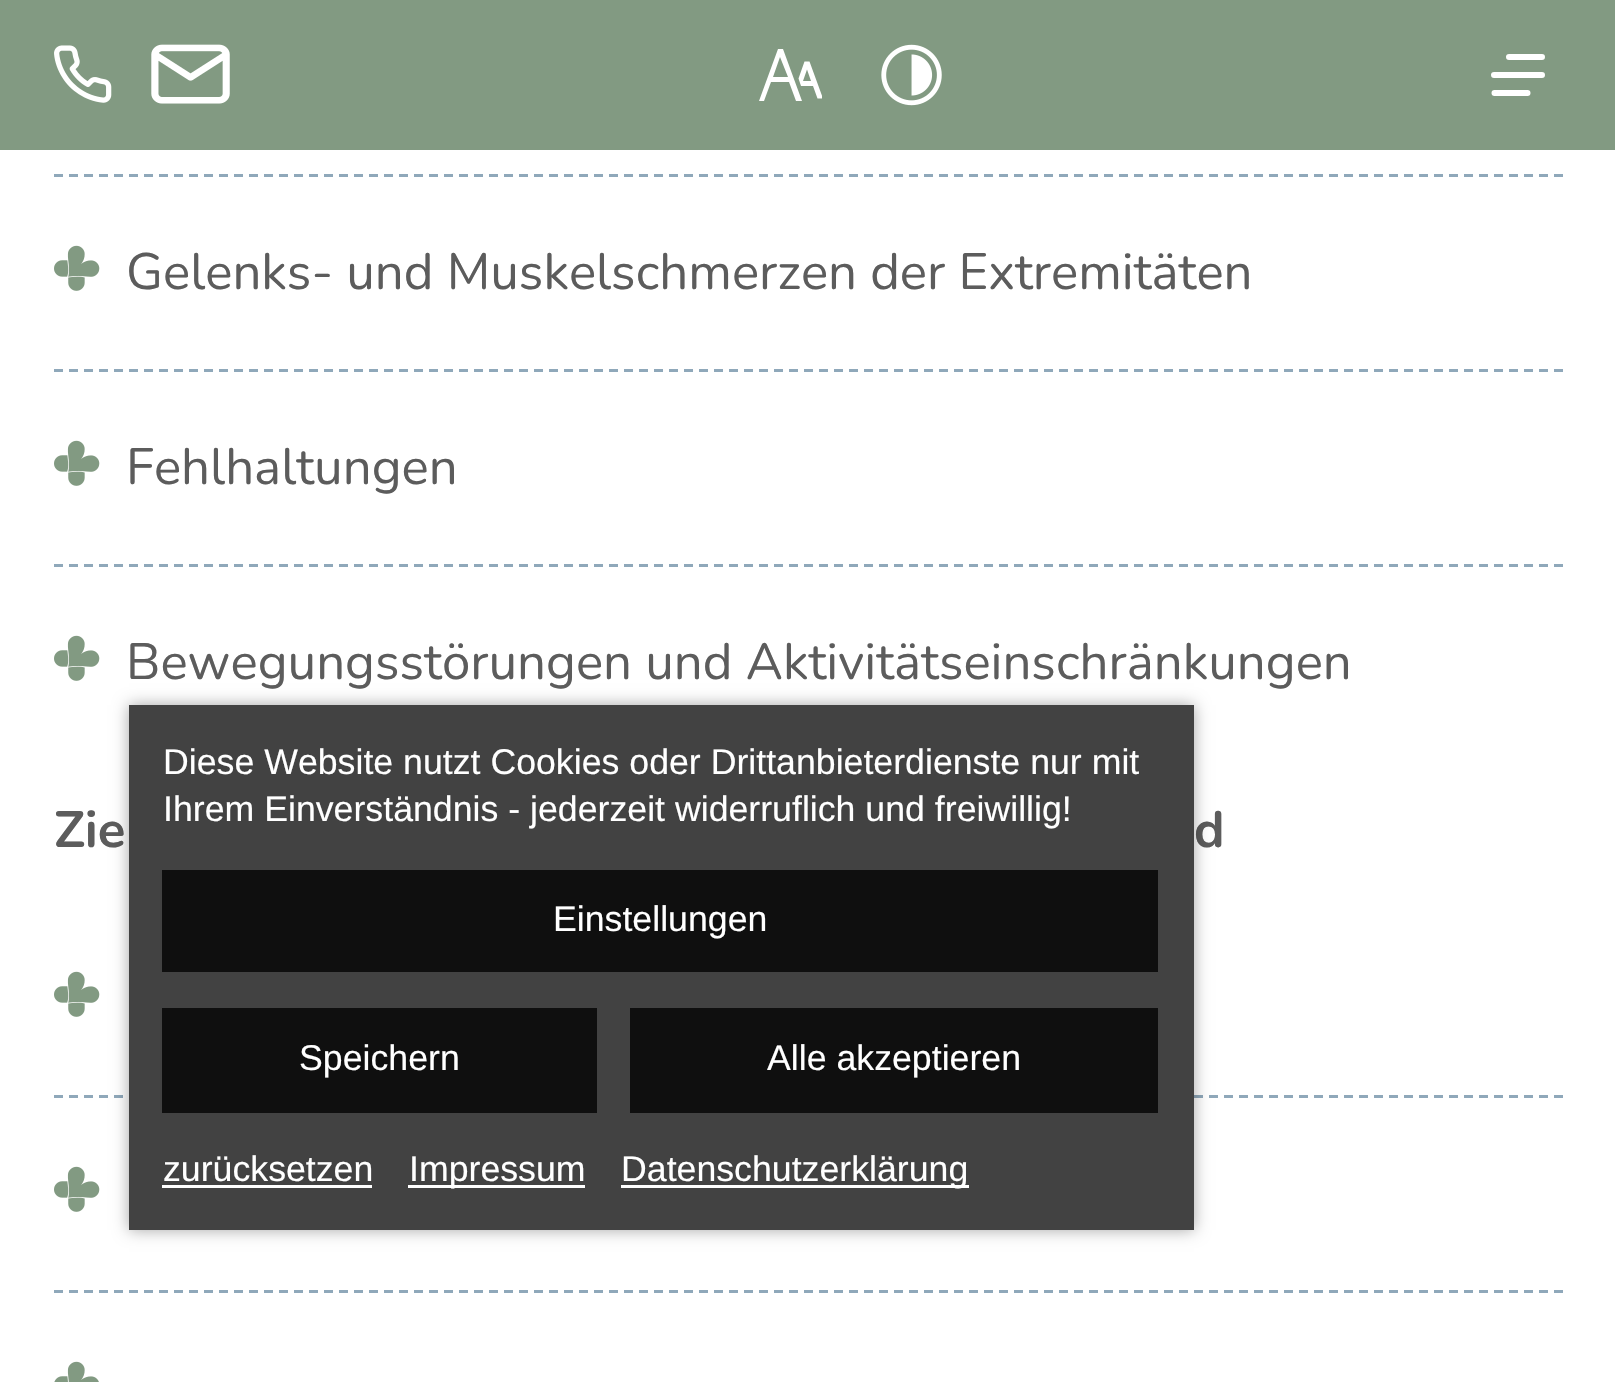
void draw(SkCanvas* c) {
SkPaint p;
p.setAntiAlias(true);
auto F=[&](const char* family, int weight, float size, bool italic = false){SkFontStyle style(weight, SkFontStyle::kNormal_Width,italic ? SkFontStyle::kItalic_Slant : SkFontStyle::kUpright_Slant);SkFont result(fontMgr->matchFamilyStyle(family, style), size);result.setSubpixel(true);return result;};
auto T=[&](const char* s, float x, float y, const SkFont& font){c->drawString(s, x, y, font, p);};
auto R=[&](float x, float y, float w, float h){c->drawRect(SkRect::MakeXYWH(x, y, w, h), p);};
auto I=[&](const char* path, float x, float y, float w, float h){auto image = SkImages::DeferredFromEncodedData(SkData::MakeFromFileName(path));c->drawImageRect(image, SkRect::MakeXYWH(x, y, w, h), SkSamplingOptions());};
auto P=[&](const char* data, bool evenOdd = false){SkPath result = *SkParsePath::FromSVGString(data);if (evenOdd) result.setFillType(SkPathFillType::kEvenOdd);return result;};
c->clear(0xffffffff);
p.setColor(0xff829a82);
R(0,0,1615,150);
I("1.png",54,45,58,58);
I("2.png",151,44,79,60);
p.setColor(0xffffffff);
c->drawPath(P("M802 101l-19-52h-5l-19 52h5l7-19h18l7 19zm-29-24l7-20l8 20z"),p);
c->save();
c->clipRect(SkRect::MakeXYWH(759,46,63,58));
c->drawPath(P("M809.5 61.5h-5l-6 17l2.5 7.5h12l4.5 12.5h5.5zm-6.5 19.5l4-11.5l4 11.5z"),p);
c->restore();
I("3.png",881,44,61,62);
p.setStroke(true);
p.setStrokeWidth(6);
p.setStrokeCap(SkPaint::kRound_Cap);
p.setStrokeJoin(SkPaint::kRound_Join);
c->drawPath(P("M1542 57h-33m18.5 36h-33m-.5-18h48"),p);
p.setStrokeWidth(3);
p.setStrokeCap(SkPaint::kButt_Cap);
p.setStrokeJoin(SkPaint::kMiter_Join);
p.setColor(0xff8fa8ba);
p.setPathEffect(SkDashPathEffect::Make({{9,6}}, 0));
c->drawPath(P("M54 175.5h1509"),p);
p.setPathEffect(nullptr);
I("4.png",54,245,46,46);
auto f1 = F("Nunito",400,51);
p.setStroke(false);
p.setColor(0xff5c5c5c);
T("Gelenks- und Muskelschmerzen der Extremitäten",126,289,f1);
p.setStroke(true);
p.setColor(0xff8fa8ba);
p.setPathEffect(SkDashPathEffect::Make({{9,6}}, 0));
c->drawPath(P("M54 370.5h1509"),p);
p.setPathEffect(nullptr);
I("4.png",54,440,46,46);
p.setStroke(false);
p.setColor(0xff5c5c5c);
T("Fehlhaltungen",126,484,f1);
p.setStroke(true);
p.setColor(0xff8fa8ba);
p.setPathEffect(SkDashPathEffect::Make({{9,6}}, 0));
c->drawPath(P("M54 565.5h1509"),p);
p.setPathEffect(nullptr);
I("4.png",54,635,46,46);
p.setStroke(false);
p.setColor(0xff5c5c5c);
T("Bewegungsstörungen und Aktivitätseinschränkungen",126,679,f1);
auto f2 = F("Nunito",700,51);
T("Zie",54,847,f2);
T("d",1194,847,f2);
I("4.png",54,971,46,46);
p.setStroke(true);
p.setColor(0xff8fa8ba);
p.setPathEffect(SkDashPathEffect::Make({{9,6}}, 0));
c->drawPath(P("M54 1096.5h1509"),p);
p.setPathEffect(nullptr);
I("4.png",54,1166,46,46);
p.setPathEffect(SkDashPathEffect::Make({{9,6}}, 0));
c->drawPath(P("M54 1291.5h1509"),p);
p.setPathEffect(nullptr);
I("5.png",54,1361,45,21);
p.setStroke(false);
p.setColor(0x59000000);
p.setMaskFilter(SkMaskFilter::MakeBlur(kNormal_SkBlurStyle, 7.5));
c->drawRect(SkRect::MakeXYWH(129,705,1065,525),p);
p.setMaskFilter(nullptr);
p.setColor(0xff424242);
R(129,705,1065,525);
auto f3 = F("Liberation Sans",400,35.7);
p.setColor(0xffffffff);
T("Diese Website nutzt Cookies oder Drittanbieterdienste nur mit",163,774,f3);
T("Ihrem Einverständnis - jederzeit widerruflich und freiwillig!",163,821,f3);
p.setColor(0xff0f0f0f);
R(162,870,996,102);
p.setColor(0xffffffff);
T("Einstellungen",553,931,f3);
p.setColor(0xff0f0f0f);
R(162,1008,435,105);
p.setColor(0xffffffff);
T("Speichern",299,1070,f3);
p.setColor(0xff0f0f0f);
R(630,1008,528,105);
p.setColor(0xffffffff);
T("Alle akzeptieren",767,1070,f3);
T("zurücksetzen",163,1181,f3);
R(162,1185,210,3);
R(408,1185,177,3);
T("Impressum",409,1181,f3);
R(621,1185,348,3);
T("Datenschutzerklärung",621,1181,f3);
}
